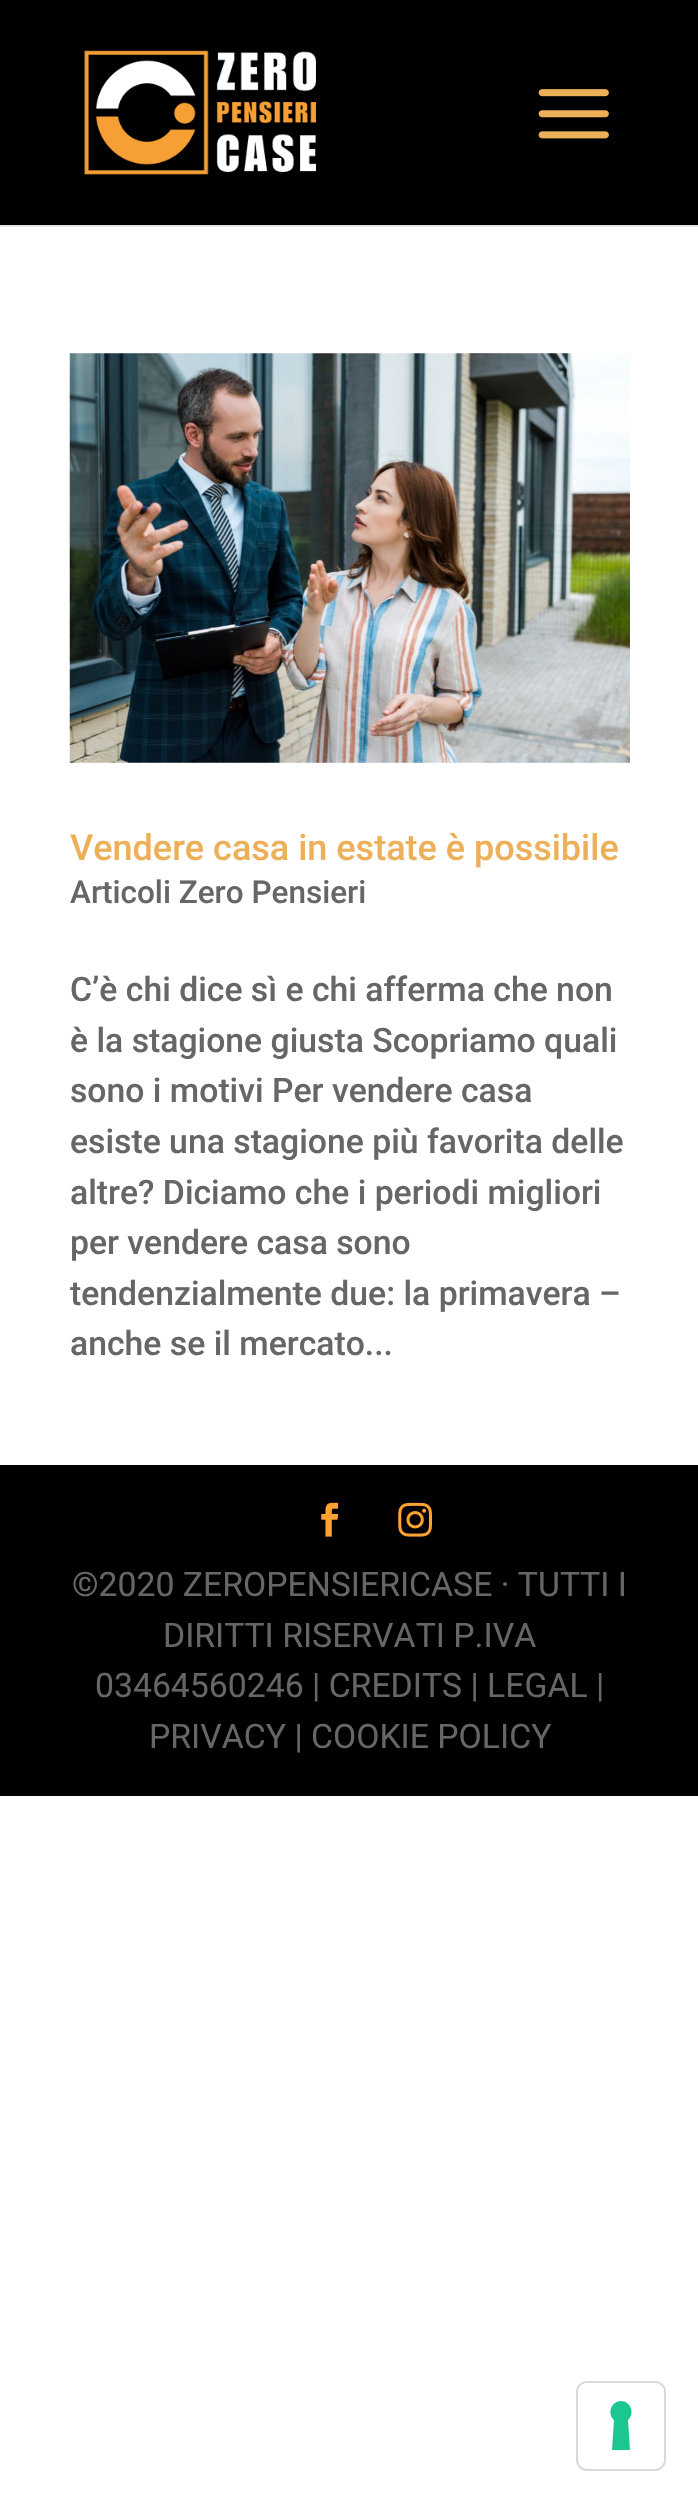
void draw(SkCanvas* c) {
SkPaint p;
p.setAntiAlias(true);
auto F=[&](const char* family, int weight, float size, bool italic = false){SkFontStyle style(weight, SkFontStyle::kNormal_Width,italic ? SkFontStyle::kItalic_Slant : SkFontStyle::kUpright_Slant);SkFont result(fontMgr->matchFamilyStyle(family, style), size);result.setSubpixel(true);return result;};
auto T=[&](const char* s, float x, float y, const SkFont& font){c->drawString(s, x, y, font, p);};
auto R=[&](float x, float y, float w, float h){c->drawRect(SkRect::MakeXYWH(x, y, w, h), p);};
auto Q=[&](float x, float y, float w, float h, float radius){c->drawRoundRect(SkRect::MakeXYWH(x, y, w, h), radius, radius, p);};
auto I=[&](const char* path, float x, float y, float w, float h){auto image = SkImages::DeferredFromEncodedData(SkData::MakeFromFileName(path));c->drawImageRect(image, SkRect::MakeXYWH(x, y, w, h), SkSamplingOptions());};
auto P=[&](const char* data, bool evenOdd = false){SkPath result = *SkParsePath::FromSVGString(data);if (evenOdd) result.setFillType(SkPathFillType::kEvenOdd);return result;};
c->clear(0xffffffff);
p.setColor(0xffe6e6e6);
c->drawPath(P("M0 225v2h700v-225v223z"),p);
p.setColor(0xff000000);
R(0,0,698,225);
I("1.png",84,50,232,125);
I("2.png",538,89,71,50);
I("3.png",69,353,561,410);
auto f1 = F("Roboto",500,36);
p.setColor(0xffedb059);
T("Vendere casa in estate è possibile",70,860,f1);
auto f2 = F("Roboto",500,31.5);
p.setColor(0xff666666);
T("Articoli Zero Pensieri",70,903,f2);
auto f3 = F("Roboto",500,33.75);
T("C’è chi dice sì e chi afferma che non",70,1001,f3);
T("è la stagione giusta Scopriamo quali",70,1052,f3);
T("sono i motivi Per vendere casa",70,1102,f3);
T("esiste una stagione più favorita delle",70,1153,f3);
T("altre? Diciamo che i periodi migliori",70,1204,f3);
T("per vendere casa sono",70,1254,f3);
T("tendenzialmente due: la primavera –",70,1305,f3);
T("anche se il mercato...",70,1355,f3);
p.setColor(0xff000000);
R(0,1465,698,331);
I("4.png",321,1502,18,35);
I("5.png",398,1502,34,35);
auto f4 = F("Roboto",400,33.75);
p.setColor(0xff666666);
T("©2020 ZEROPENSIERICASE · TUTTI I",72,1596,f4);
T("DIRITTI RISERVATI P.IVA",163,1647,f4);
T("03464560246 | CREDITS | LEGAL |",95,1697,f4);
T("PRIVACY | COOKIE POLICY",149,1748,f4);
p.setStroke(true);
p.setStrokeWidth(2);
p.setColor(0xffd9d9d9);
c->drawRoundRect(SkRect::MakeXYWH(577,2382,88,88),10,10,p);
p.setStroke(false);
p.setColor(0xffffffff);
Q(578,2383,86,85,9);
p.setColor(0xff1cc691);
c->drawPath(P("M621 2401c10 0 14 13 7 19l2 30h-18l2-30c-7-6-3-19 7-19z",true),p);
}
